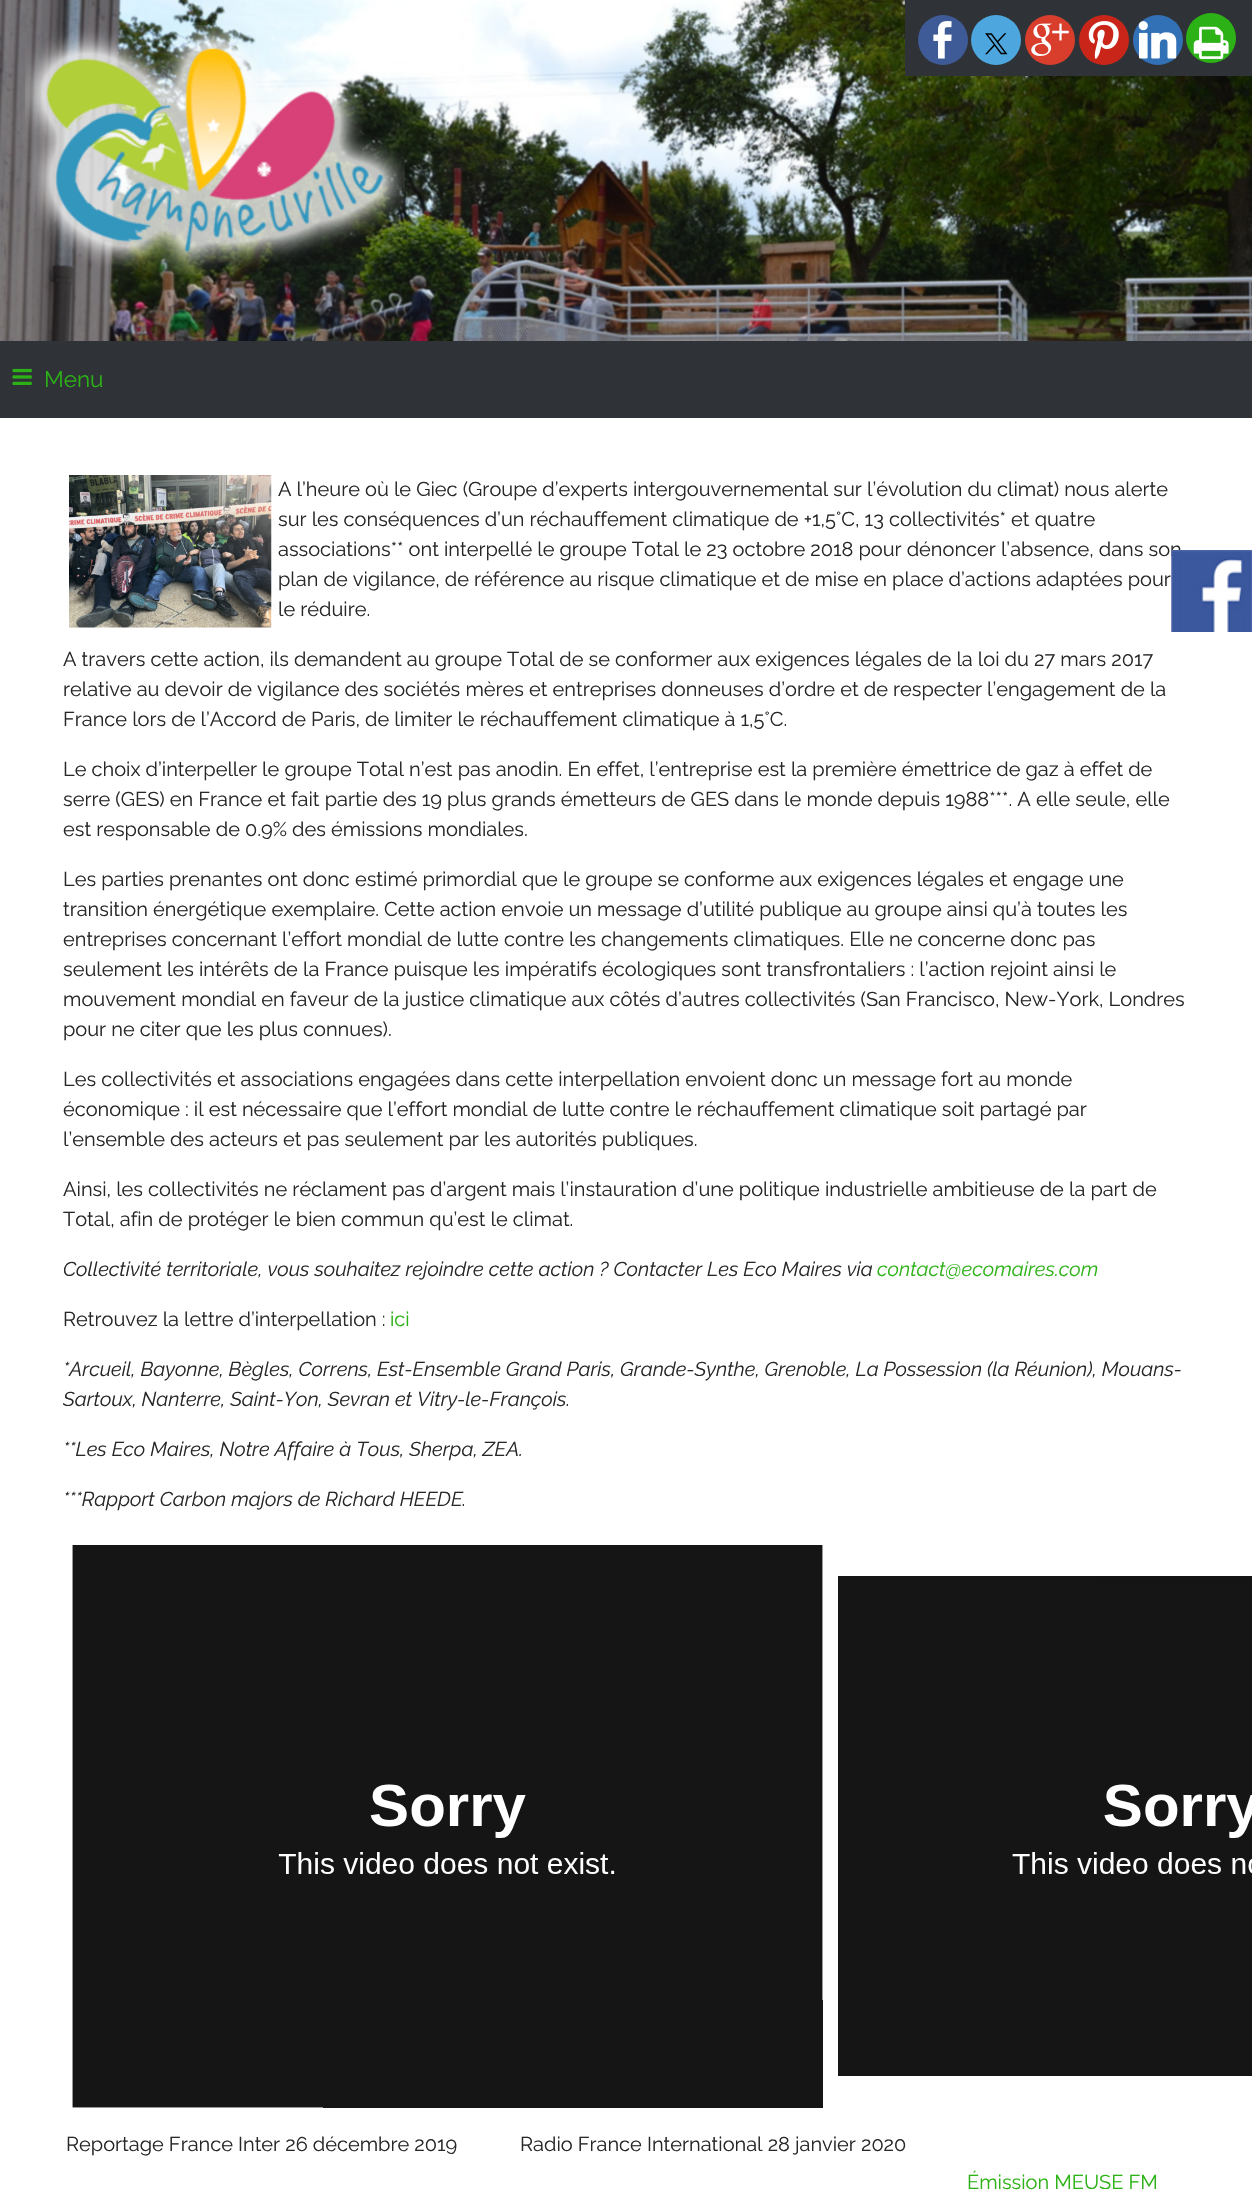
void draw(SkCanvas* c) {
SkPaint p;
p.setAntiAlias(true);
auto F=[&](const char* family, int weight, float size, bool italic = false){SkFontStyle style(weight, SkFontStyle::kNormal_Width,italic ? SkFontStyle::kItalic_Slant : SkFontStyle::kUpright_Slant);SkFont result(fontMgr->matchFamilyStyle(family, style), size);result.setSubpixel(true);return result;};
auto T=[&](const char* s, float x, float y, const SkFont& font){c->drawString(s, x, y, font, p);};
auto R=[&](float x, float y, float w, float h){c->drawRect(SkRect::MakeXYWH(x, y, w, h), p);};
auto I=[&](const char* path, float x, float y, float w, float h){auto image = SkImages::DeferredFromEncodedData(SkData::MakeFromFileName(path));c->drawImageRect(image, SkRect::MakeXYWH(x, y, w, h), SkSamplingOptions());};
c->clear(0xffffffff);
I("1.png",0,0,1252,341);
I("2.png",25,25,380,250);
p.setColor(0xff2f3337);
R(905,0,347,76);
p.setColor(0xff3e5b98);
c->drawCircle(943,40,25,p);
I("3.png",933,21,19,38);
p.setColor(0xff4da7de);
c->drawCircle(996,40,25,p);
I("4.png",985,33,23,22);
p.setColor(0xffd93e2d);
c->drawCircle(1050,40,25,p);
I("5.png",1031,23,38,33);
p.setColor(0xffc92619);
c->drawCircle(1104,40,25,p);
I("6.png",1088,21,31,38);
p.setColor(0xff3371b7);
c->drawCircle(1158,40,25,p);
I("7.png",1138,21,39,38);
p.setColor(0xff2cb216);
c->drawCircle(1211,38,25,p);
I("8.png",1193,26,36,33);
p.setColor(0xff2f3337);
R(0,341,1252,77);
I("9.png",12,368,20,17);
auto f1 = F("Raleway",400,22.5);
p.setColor(0xff2cb216);
T("Menu",44,387,f1);
I("10.png",69,475,203,153);
auto f2 = F("Raleway",400,20);
p.setColor(0xff272727);
T("A l’heure où le Giec (Groupe d’experts intergouvernemental sur l’évolution du climat) nous alerte",278,496,f2);
T("sur les conséquences d’un réchauffement climatique de +1,5°C, 13 collectivités* et quatre",278,526,f2);
T("associations** ont interpellé le groupe Total le 23 octobre 2018 pour dénoncer l’absence, dans son",278,556,f2);
T("plan de vigilance, de référence au risque climatique et de mise en place d’actions adaptées pour",278,586,f2);
T("le réduire.",278,616,f2);
T("A travers cette action, ils demandent au groupe Total de se conformer aux exigences légales de la loi du 27 mars 2017",63,666,f2);
T("relative au devoir de vigilance des sociétés mères et entreprises donneuses d’ordre et de respecter l’engagement de la",63,696,f2);
T("France lors de l’Accord de Paris, de limiter le réchauffement climatique à 1,5°C.",63,726,f2);
T("Le choix d’interpeller le groupe Total n’est pas anodin. En effet, l’entreprise est la première émettrice de gaz à effet de",63,776,f2);
T("serre (GES) en France et fait partie des 19 plus grands émetteurs de GES dans le monde depuis 1988***. A elle seule, elle",63,806,f2);
T("est responsable de 0.9% des émissions mondiales.",63,836,f2);
T("Les parties prenantes ont donc estimé primordial que le groupe se conforme aux exigences légales et engage une",63,886,f2);
T("transition énergétique exemplaire. Cette action envoie un message d’utilité publique au groupe ainsi qu’à toutes les",63,916,f2);
T("entreprises concernant l’effort mondial de lutte contre les changements climatiques. Elle ne concerne donc pas",63,946,f2);
T("seulement les intérêts de la France puisque les impératifs écologiques sont transfrontaliers : l’action rejoint ainsi le",63,976,f2);
T("mouvement mondial en faveur de la justice climatique aux côtés d’autres collectivités (San Francisco, New-York, Londres",63,1006,f2);
T("pour ne citer que les plus connues).",63,1036,f2);
T("Les collectivités et associations engagées dans cette interpellation envoient donc un message fort au monde",63,1086,f2);
T("économique : il est nécessaire que l’effort mondial de lutte contre le réchauffement climatique soit partagé par",63,1116,f2);
T("l’ensemble des acteurs et pas seulement par les autorités publiques.",63,1146,f2);
T("Ainsi, les collectivités ne réclament pas d’argent mais l’instauration d’une politique industrielle ambitieuse de la part de",63,1196,f2);
T("Total, afin de protéger le bien commun qu’est le climat.",63,1226,f2);
auto f3 = F("Raleway",400,20,true);
T("Collectivité territoriale, vous souhaitez rejoindre cette action ? Contacter Les Eco Maires via",63,1276,f3);
p.setColor(0xff2cb216);
T("contact@ecomaires.com",877,1276,f3);
p.setColor(0xff272727);
T("Retrouvez la lettre d’interpellation :",63,1326,f2);
p.setColor(0xff2cb216);
T("ici",390,1326,f2);
p.setColor(0xff272727);
T("*Arcueil, Bayonne, Bègles, Correns, Est-Ensemble Grand Paris, Grande-Synthe, Grenoble, La Possession (la Réunion), Mouans-",63,1376,f3);
T("Sartoux, Nanterre, Saint-Yon, Sevran et Vitry-le-François.",63,1406,f3);
T("**Les Eco Maires, Notre Affaire à Tous, Sherpa, ZEA.",63,1456,f3);
T("***Rapport Carbon majors de Richard HEEDE.",63,1506,f3);
I("11.png",72,1545,751,563);
I("12.png",838,1576,414,500);
T("Reportage France Inter 26 décembre 2019",66,2151,f2);
T("Radio France International 28 janvier 2020",520,2151,f2);
p.setColor(0xff2cb216);
T("Émission MEUSE FM",967,2189,f2);
I("13.png",1171,550,81,82);
}
